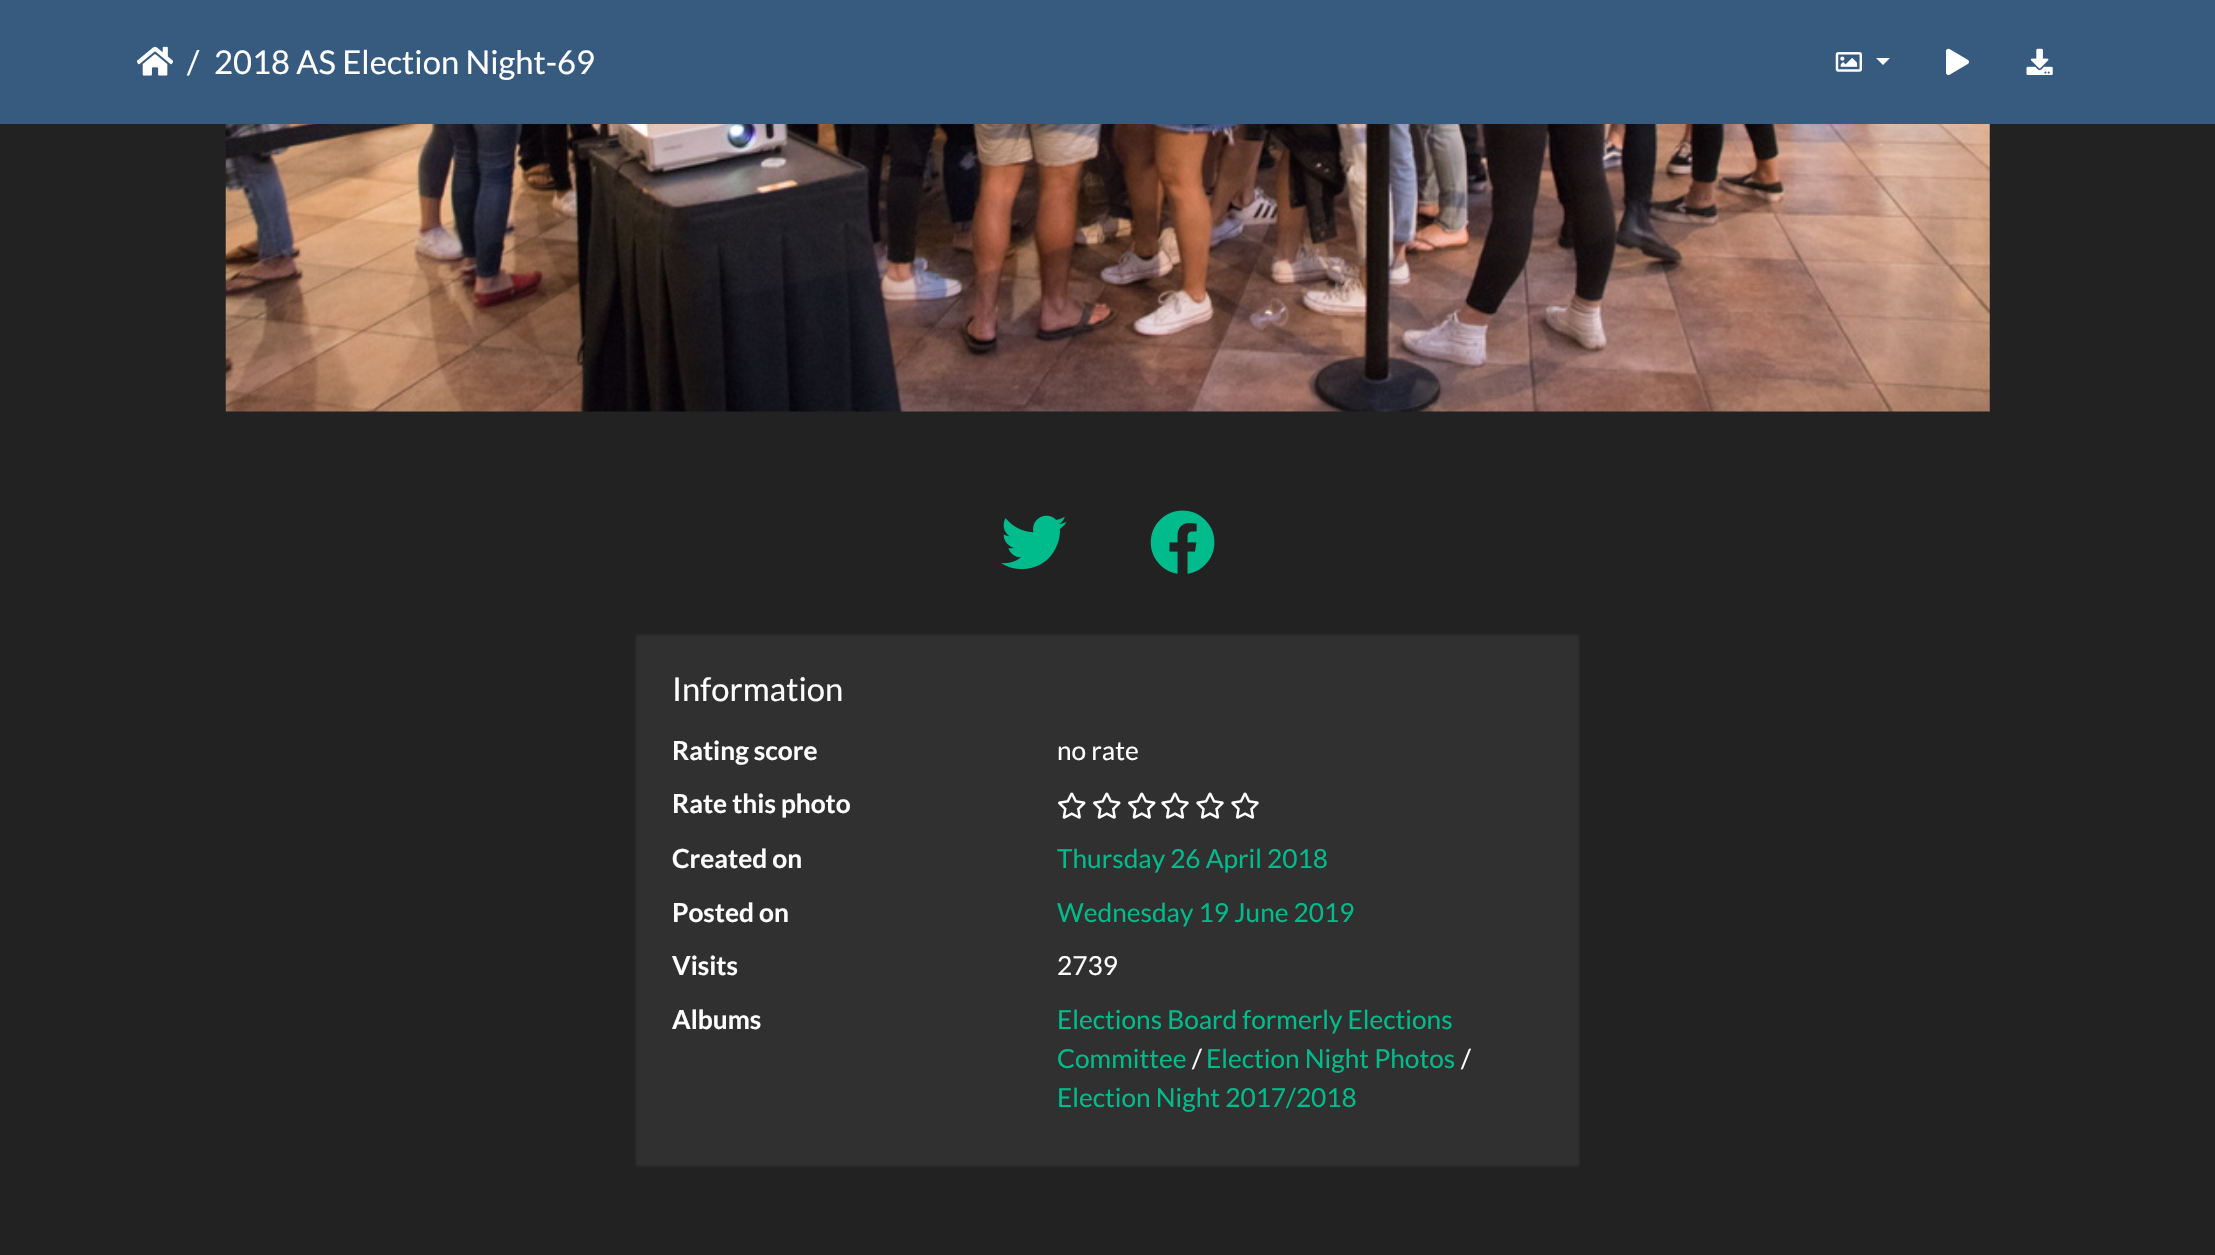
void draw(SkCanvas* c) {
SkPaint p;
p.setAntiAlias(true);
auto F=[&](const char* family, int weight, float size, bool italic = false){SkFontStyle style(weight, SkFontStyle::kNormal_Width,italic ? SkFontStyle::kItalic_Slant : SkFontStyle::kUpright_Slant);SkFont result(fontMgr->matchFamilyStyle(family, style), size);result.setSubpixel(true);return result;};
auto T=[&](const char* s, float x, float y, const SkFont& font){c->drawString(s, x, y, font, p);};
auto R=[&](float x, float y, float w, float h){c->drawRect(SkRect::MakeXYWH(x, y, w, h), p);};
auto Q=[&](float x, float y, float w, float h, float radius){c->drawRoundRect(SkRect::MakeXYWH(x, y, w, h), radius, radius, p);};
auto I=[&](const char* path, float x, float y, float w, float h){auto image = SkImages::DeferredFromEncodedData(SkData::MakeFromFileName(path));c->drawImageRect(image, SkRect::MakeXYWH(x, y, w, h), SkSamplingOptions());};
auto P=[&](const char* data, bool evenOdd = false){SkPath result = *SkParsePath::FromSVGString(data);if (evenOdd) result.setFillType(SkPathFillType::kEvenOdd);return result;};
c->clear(0xff222222);
p.setColor(0xff375a7f);
R(0,0,2215,124);
I("1.png",137,46,36,30);
auto f1 = F("Lato",400,32.75);
p.setColor(0xffffffff);
T("/",187,74,f1);
T("2018 AS Election Night-69",214,74,f1);
I("2.png",1835,52,27,20);
c->drawPath(P("M1876 58h14l-7 7z"),p);
I("3.png",1946,48,23,27);
I("4.png",2026,48,27,27);
I("5.png",225,124,1765,288);
I("6.png",1001,515,66,55);
I("7.png",1150,510,65,64);
p.setColor(0xff303030);
Q(635,634,945,533,4);
p.setStroke(true);
p.setStrokeWidth(2);
p.setColor(0x1f000000);
c->drawRoundRect(SkRect::MakeXYWH(636,635,943,531),3,3,p);
p.setStroke(false);
p.setColor(0xffffffff);
T("Information",672,701,f1);
auto f2 = F("Lato",700,26.25);
T("Rating score",672,760,f2);
auto f3 = F("Lato",400,26.25);
T("no rate",1057,760,f3);
T("Rate this photo",672,813,f2);
I("8.png",1058,792,28,27);
I("8.png",1093,792,28,27);
I("8.png",1128,792,28,27);
I("9.png",1161,792,28,27);
I("9.png",1196,792,28,27);
I("9.png",1231,792,28,27);
T("Created on",672,868,f2);
p.setColor(0xff00bc8c);
T("Thursday 26 April 2018",1057,868,f3);
p.setColor(0xffffffff);
T("Posted on",672,922,f2);
p.setColor(0xff00bc8c);
T("Wednesday 19 June 2019",1057,922,f3);
p.setColor(0xffffffff);
T("Visits",672,975,f2);
T("2739",1057,975,f3);
T("Albums",672,1029,f2);
p.setColor(0xff00bc8c);
T("Elections Board formerly Elections",1057,1029,f3);
T("Committee",1057,1068,f3);
p.setColor(0xffffffff);
T("/",1192,1068,f3);
p.setColor(0xff00bc8c);
T("Election Night Photos",1206,1068,f3);
p.setColor(0xffffffff);
T("/",1461,1068,f3);
p.setColor(0xff00bc8c);
T("Election Night 2017/2018",1057,1107,f3);
}
